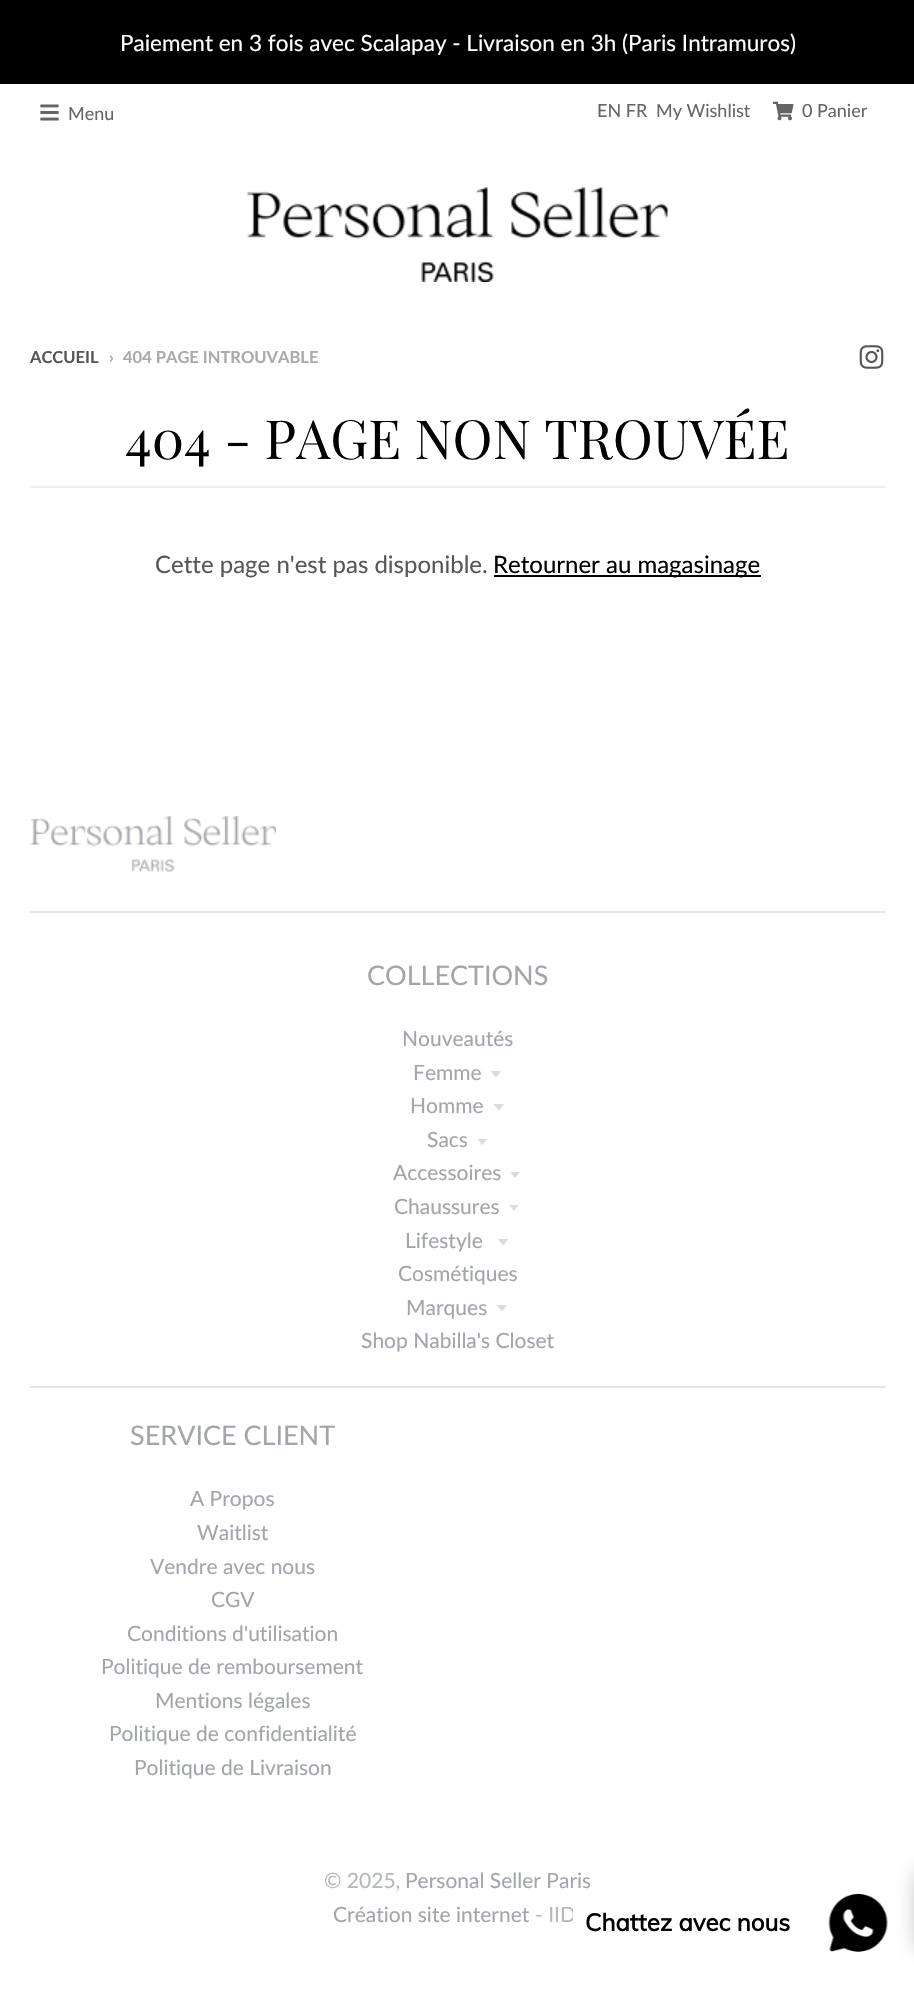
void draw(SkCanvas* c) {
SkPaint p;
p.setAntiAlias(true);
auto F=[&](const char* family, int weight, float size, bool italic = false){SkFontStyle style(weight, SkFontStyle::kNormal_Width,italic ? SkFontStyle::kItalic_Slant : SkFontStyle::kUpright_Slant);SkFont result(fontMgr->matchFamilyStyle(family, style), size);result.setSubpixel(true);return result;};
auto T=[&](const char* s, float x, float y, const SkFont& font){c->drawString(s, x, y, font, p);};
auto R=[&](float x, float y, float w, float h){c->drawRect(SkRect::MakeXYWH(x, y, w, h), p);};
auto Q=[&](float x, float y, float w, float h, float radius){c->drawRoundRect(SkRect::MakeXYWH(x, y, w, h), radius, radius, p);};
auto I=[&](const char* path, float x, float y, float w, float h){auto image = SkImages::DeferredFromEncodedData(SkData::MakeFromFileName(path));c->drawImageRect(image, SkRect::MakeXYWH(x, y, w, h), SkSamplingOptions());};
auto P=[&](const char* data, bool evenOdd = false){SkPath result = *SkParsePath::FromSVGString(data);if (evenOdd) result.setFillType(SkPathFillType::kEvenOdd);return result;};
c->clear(0xffffffff);
p.setColor(0xff000000);
R(0,0,914,84);
auto f1 = F("Lato",400,22.5);
p.setColor(0xffffffff);
T("Paiement en 3 fois avec Scalapay - Livraison en 3h (Paris Intramuros)",120,51,f1);
I("1.png",40,104,19,17);
auto f2 = F("Lato",400,18);
p.setColor(0xff656565);
T("Menu",68,120,f2);
T("EN FR",597,117,f2);
T("My Wishlist",656,117,f2);
I("2.png",773,101,21,20);
T("0 Panier",802,117,f2);
I("3.png",247,187,421,95);
auto f3 = F("Lato",700,16.5);
p.setColor(0xff565656);
T("ACCUEIL",30,363,f3);
p.setColor(0xffaaaaaa);
T("›",109,363,f3);
T("404 PAGE INTROUVABLE",123,363,f3);
I("4.png",859,345,25,24);
p.setColor(0xffeeeeee);
R(30,486,855,2);
auto f4 = F("Playfair Display",400,54);
p.setColor(0xff000000);
T("404 - PAGE NON TROUVÉE",125,459,f4);
auto f5 = F("Lato",400,24);
p.setColor(0xff565656);
T("Cette page n'est pas disponible.",155,573,f5);
p.setColor(0xff000000);
R(494,575,267,2);
T("Retourner au magasinage",493,573,f5);
p.setColor(0xffe3e4e6);
R(30,911,855,2);
I("5.png",30,816,246,56);
auto f6 = F("Lato",400,27);
p.setColor(0xffa2a5ac);
T("COLLECTIONS",367,985,f6);
p.setColor(0xffe3e4e6);
R(30,1386,855,2);
auto f7 = F("Lato",400,21);
p.setColor(0xffa2a5ac);
T("Nouveautés",402,1046,f7);
T("Femme",413,1080,f7);
p.setColor(0xffdadbde);
c->drawPath(P("M490.5 1071l5.5 6.5l5-6.5z"),p);
p.setColor(0xffa2a5ac);
T("Homme",410,1113,f7);
p.setColor(0xffdadbde);
c->drawPath(P("M493.5 1104l5.5 6.5l5-6.5z"),p);
p.setColor(0xffa2a5ac);
T("Sacs",427,1147,f7);
c->save();
c->clipRect(SkRect::MakeXYWH(477,1139,12,7));
p.setColor(0xffdadbde);
c->drawPath(P("M477 1138.5l5 6.5l5.5-6.5z"),p);
c->restore();
p.setColor(0xffa2a5ac);
T("Accessoires",393,1180,f7);
c->save();
c->clipRect(SkRect::MakeXYWH(510,1172,12,7));
p.setColor(0xffdadbde);
c->drawPath(P("M510 1171.5l5 6.5l5.5-6.5z"),p);
c->restore();
p.setColor(0xffa2a5ac);
T("Chaussures",394,1214,f7);
c->save();
c->clipRect(SkRect::MakeXYWH(509,1205,12,7));
p.setColor(0xffdadbde);
c->drawPath(P("M508.5 1204.5l5.5 6.5l5-6.5z"),p);
c->restore();
p.setColor(0xffa2a5ac);
T("Lifestyle",405,1248,f7);
p.setColor(0xffdadbde);
c->drawPath(P("M498 1239l5 6.5l5.5-6.5z"),p);
p.setColor(0xffa2a5ac);
T("Cosmétiques",398,1281,f7);
T("Marques",406,1315,f7);
p.setColor(0xffdadbde);
c->drawPath(P("M496.5 1305l5.5 6.5l5-6.5z"),p);
p.setColor(0xffa2a5ac);
T("Shop Nabilla's Closet",361,1348,f7);
T("SERVICE CLIENT",130,1445,f6);
T("A Propos",190,1506,f7);
T("Waitlist",197,1540,f7);
T("Vendre avec nous",150,1574,f7);
T("CGV",211,1607,f7);
T("Conditions d'utilisation",127,1641,f7);
T("Politique de remboursement",101,1674,f7);
T("Mentions légales",155,1708,f7);
T("Politique de confidentialité",109,1741,f7);
T("Politique de Livraison",134,1775,f7);
p.setColor(0xffb4b7bc);
T("© 2025,",324,1888,f7);
p.setColor(0xffa2a5ac);
T("Personal Seller Paris",405,1888,f7);
T("Création site internet",333,1922,f7);
p.setColor(0xffb4b7bc);
T("- IID",535,1922,f7);
p.setColor(0x80757575);
p.setMaskFilter(SkMaskFilter::MakeBlur(kNormal_SkBlurStyle, 10.5));
c->drawRect(SkRect::MakeXYWH(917,1872,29,75),p);
p.setMaskFilter(nullptr);
I("6.png",828,1893,60,59);
p.setColor(0xffffffff);
Q(573,1896,231,56,12);
auto f8 = F("Muli",700,24);
p.setColor(0xff000000);
T("Chattez avec nous",585,1931,f8);
}
